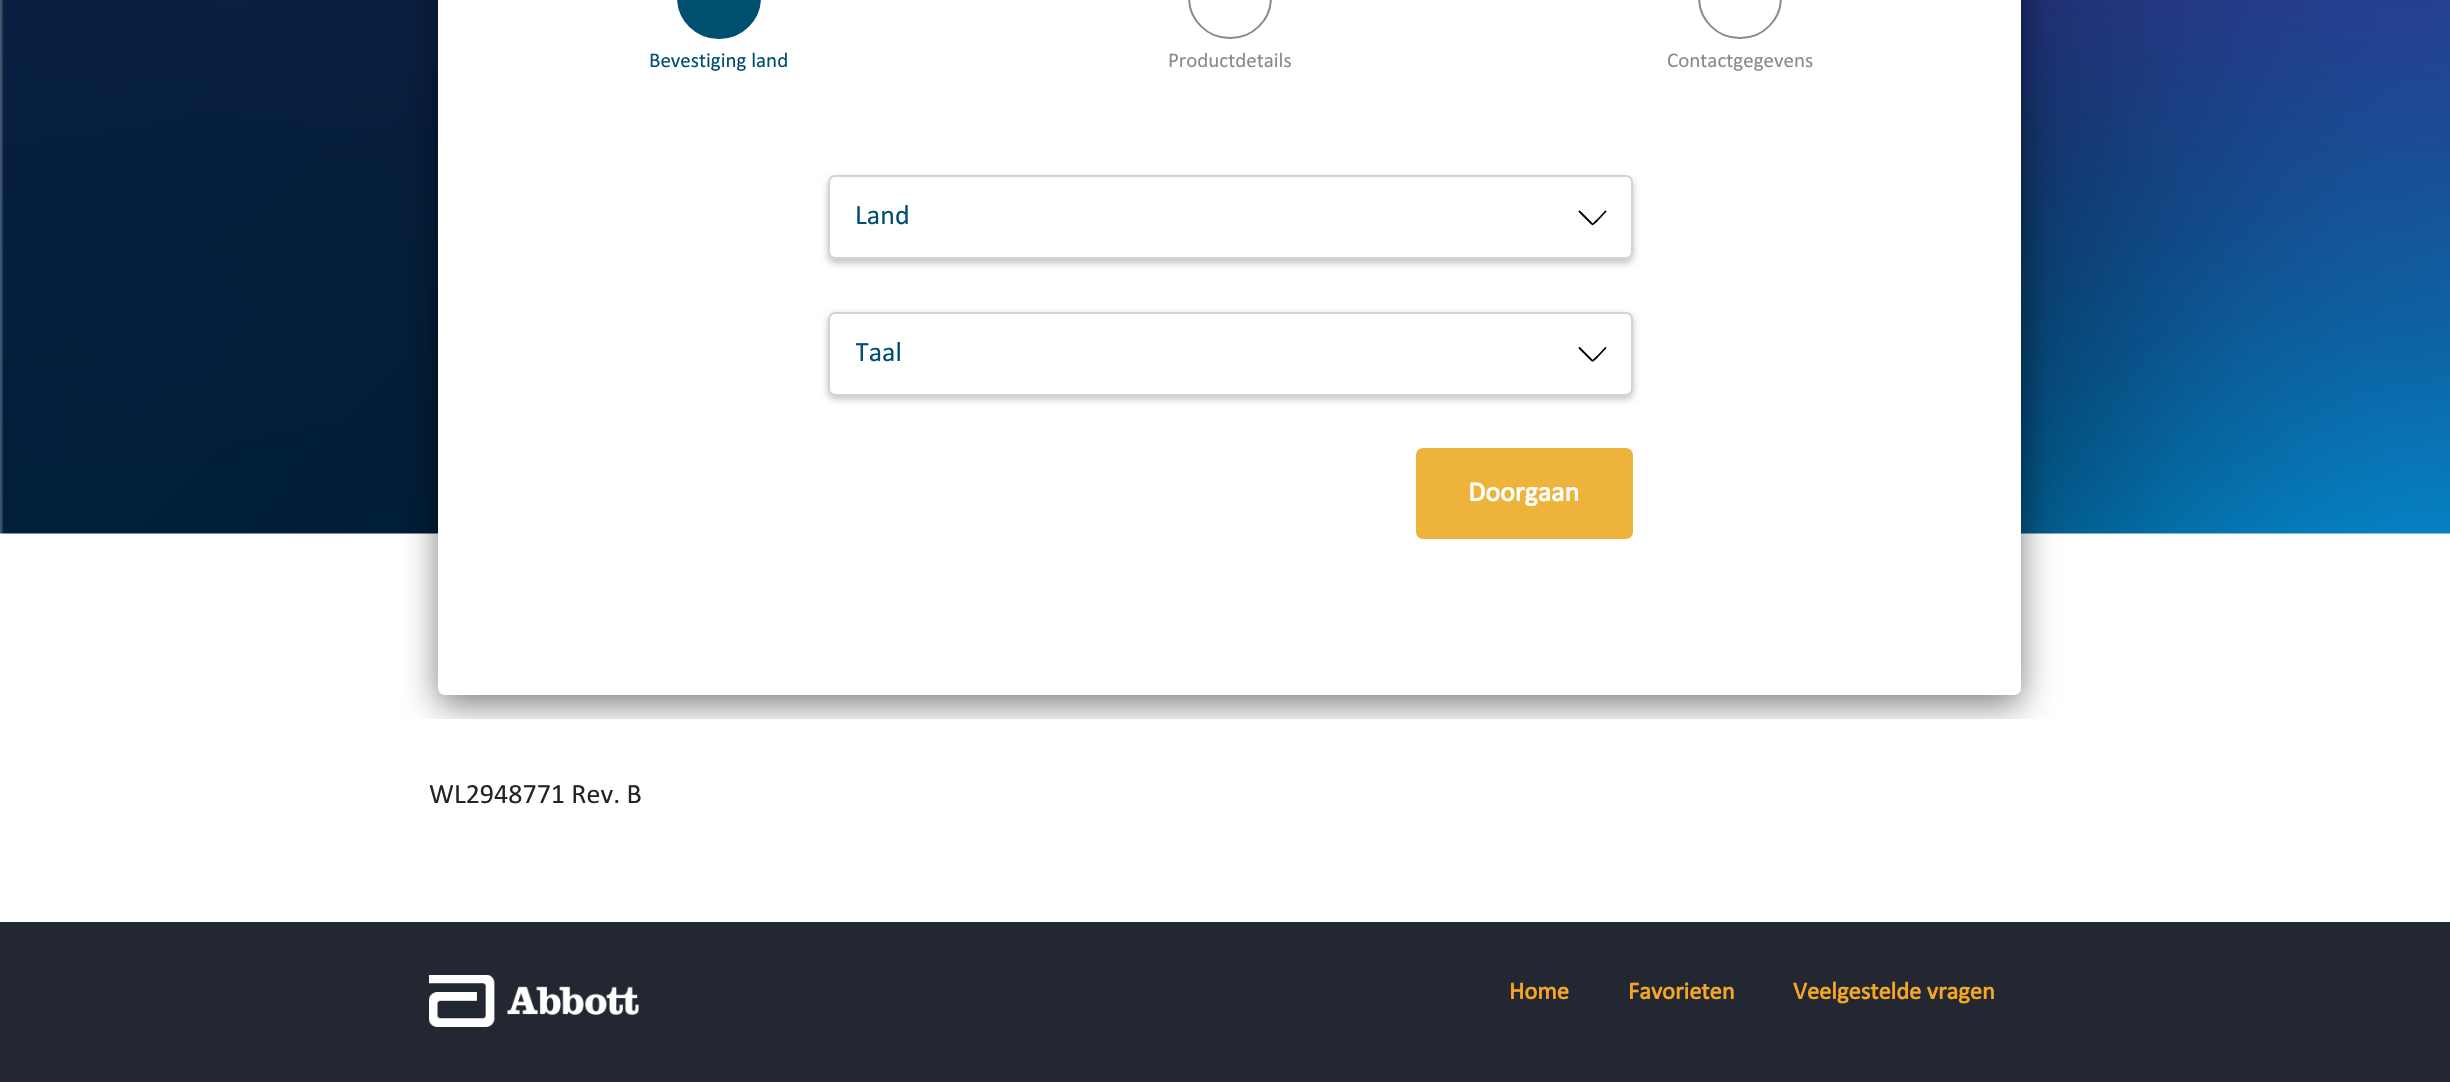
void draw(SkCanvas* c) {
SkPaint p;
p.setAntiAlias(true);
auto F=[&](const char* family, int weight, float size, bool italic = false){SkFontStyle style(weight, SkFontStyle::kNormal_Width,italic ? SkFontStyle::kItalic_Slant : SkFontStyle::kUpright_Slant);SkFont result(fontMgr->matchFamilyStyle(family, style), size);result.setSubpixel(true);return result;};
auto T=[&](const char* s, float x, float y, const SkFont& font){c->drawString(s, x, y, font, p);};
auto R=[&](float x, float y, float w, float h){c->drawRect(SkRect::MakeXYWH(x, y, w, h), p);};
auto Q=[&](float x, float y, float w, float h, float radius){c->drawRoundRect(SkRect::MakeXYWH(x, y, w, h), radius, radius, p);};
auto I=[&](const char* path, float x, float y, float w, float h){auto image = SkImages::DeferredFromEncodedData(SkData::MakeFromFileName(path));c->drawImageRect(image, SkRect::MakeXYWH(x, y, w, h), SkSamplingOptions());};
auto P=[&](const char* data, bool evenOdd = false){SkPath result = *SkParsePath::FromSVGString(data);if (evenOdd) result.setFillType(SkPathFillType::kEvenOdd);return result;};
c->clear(0xffffffff);
I("1.png",0,0,2450,534);
c->save();
c->clipRect(SkRect::MakeXYWH(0,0,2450,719));
p.setColor(0x80000000);
p.setMaskFilter(SkMaskFilter::MakeBlur(kNormal_SkBlurStyle, 17.5));
c->drawRoundRect(SkRect::MakeXYWH(438,-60,1583,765),7,7,p);
p.setMaskFilter(nullptr);
c->restore();
p.setColor(0xffffffff);
Q(438,-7,1583,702,7);
p.setColor(0xff004f71);
c->drawRoundRect(SkRect::MakeXYWH(678,-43,82,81),41,41,p);
p.setStroke(true);
p.setStrokeWidth(2);
c->drawRoundRect(SkRect::MakeXYWH(678,-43,82,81),41,41,p);
auto f1 = F("Calibri",400,21);
p.setStroke(false);
T("Bevestiging land",649,67,f1);
p.setStroke(true);
p.setColor(0xff888b8d);
c->drawRoundRect(SkRect::MakeXYWH(1189,-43,82,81),41,41,p);
p.setStroke(false);
T("Productdetails",1168,67,f1);
p.setStroke(true);
c->drawRoundRect(SkRect::MakeXYWH(1699,-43,82,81),41,41,p);
p.setStroke(false);
T("Contactgegevens",1667,67,f1);
p.setColor(0x3d000000);
p.setMaskFilter(SkMaskFilter::MakeBlur(kNormal_SkBlurStyle, 3.5));
c->drawRoundRect(SkRect::MakeXYWH(828,179,805,84),7,7,p);
p.setMaskFilter(nullptr);
p.setColor(0xffffffff);
Q(828,175,805,84,7);
p.setStroke(true);
p.setStrokeWidth(1.8);
p.setStrokeCap(SkPaint::kRound_Cap);
p.setStrokeJoin(SkPaint::kRound_Join);
p.setColor(0xff000000);
c->drawPath(P("M1605.5 211.5l-8 8.5c-5.5 5-4 5.5-7.5 2l-10.5-10.5"),p);
p.setStrokeWidth(2);
p.setStrokeCap(SkPaint::kButt_Cap);
p.setStrokeJoin(SkPaint::kMiter_Join);
p.setColor(0xffced4da);
c->drawRoundRect(SkRect::MakeXYWH(829,176,803,82),6,6,p);
auto f2 = F("Calibri",400,28);
p.setStroke(false);
p.setColor(0xff004f71);
T("Land",855,224,f2);
p.setColor(0x3d000000);
p.setMaskFilter(SkMaskFilter::MakeBlur(kNormal_SkBlurStyle, 3.5));
c->drawRoundRect(SkRect::MakeXYWH(828,315,805,84),7,7,p);
p.setMaskFilter(nullptr);
p.setColor(0xffffffff);
Q(828,312,805,84,7);
p.setStroke(true);
p.setStrokeWidth(1.8);
p.setStrokeCap(SkPaint::kRound_Cap);
p.setStrokeJoin(SkPaint::kRound_Join);
p.setColor(0xff000000);
c->drawPath(P("M1605.5 348l-8 8.5c-5.5 5-4 5.5-7.5 2l-10.5-10.5"),p);
p.setStrokeWidth(2);
p.setStrokeCap(SkPaint::kButt_Cap);
p.setStrokeJoin(SkPaint::kMiter_Join);
p.setColor(0xffced4da);
c->drawRoundRect(SkRect::MakeXYWH(829,313,803,82),6,6,p);
c->save();
c->clipRect(SkRect::MakeXYWH(856,336,688,35));
p.setStroke(false);
p.setColor(0xff004f71);
T("Taal",855,361,f2);
c->restore();
p.setColor(0xffeeb33b);
Q(1416,448,217,91,7);
auto f3 = F("Calibri",700,28);
p.setColor(0xffffffff);
T("Doorgaan",1468,501,f3);
p.setColor(0xff212529);
T("WL2948771 Rev. B",429,803,f2);
p.setColor(0xff222731);
R(0,922,2450,160);
I("2.png",429,975,210,52);
auto f4 = F("Calibri",700,24.5);
p.setColor(0xfff5a623);
T("Home",1509,999,f4);
T("Favorieten",1628,999,f4);
T("Veelgestelde vragen",1793,999,f4);
}
